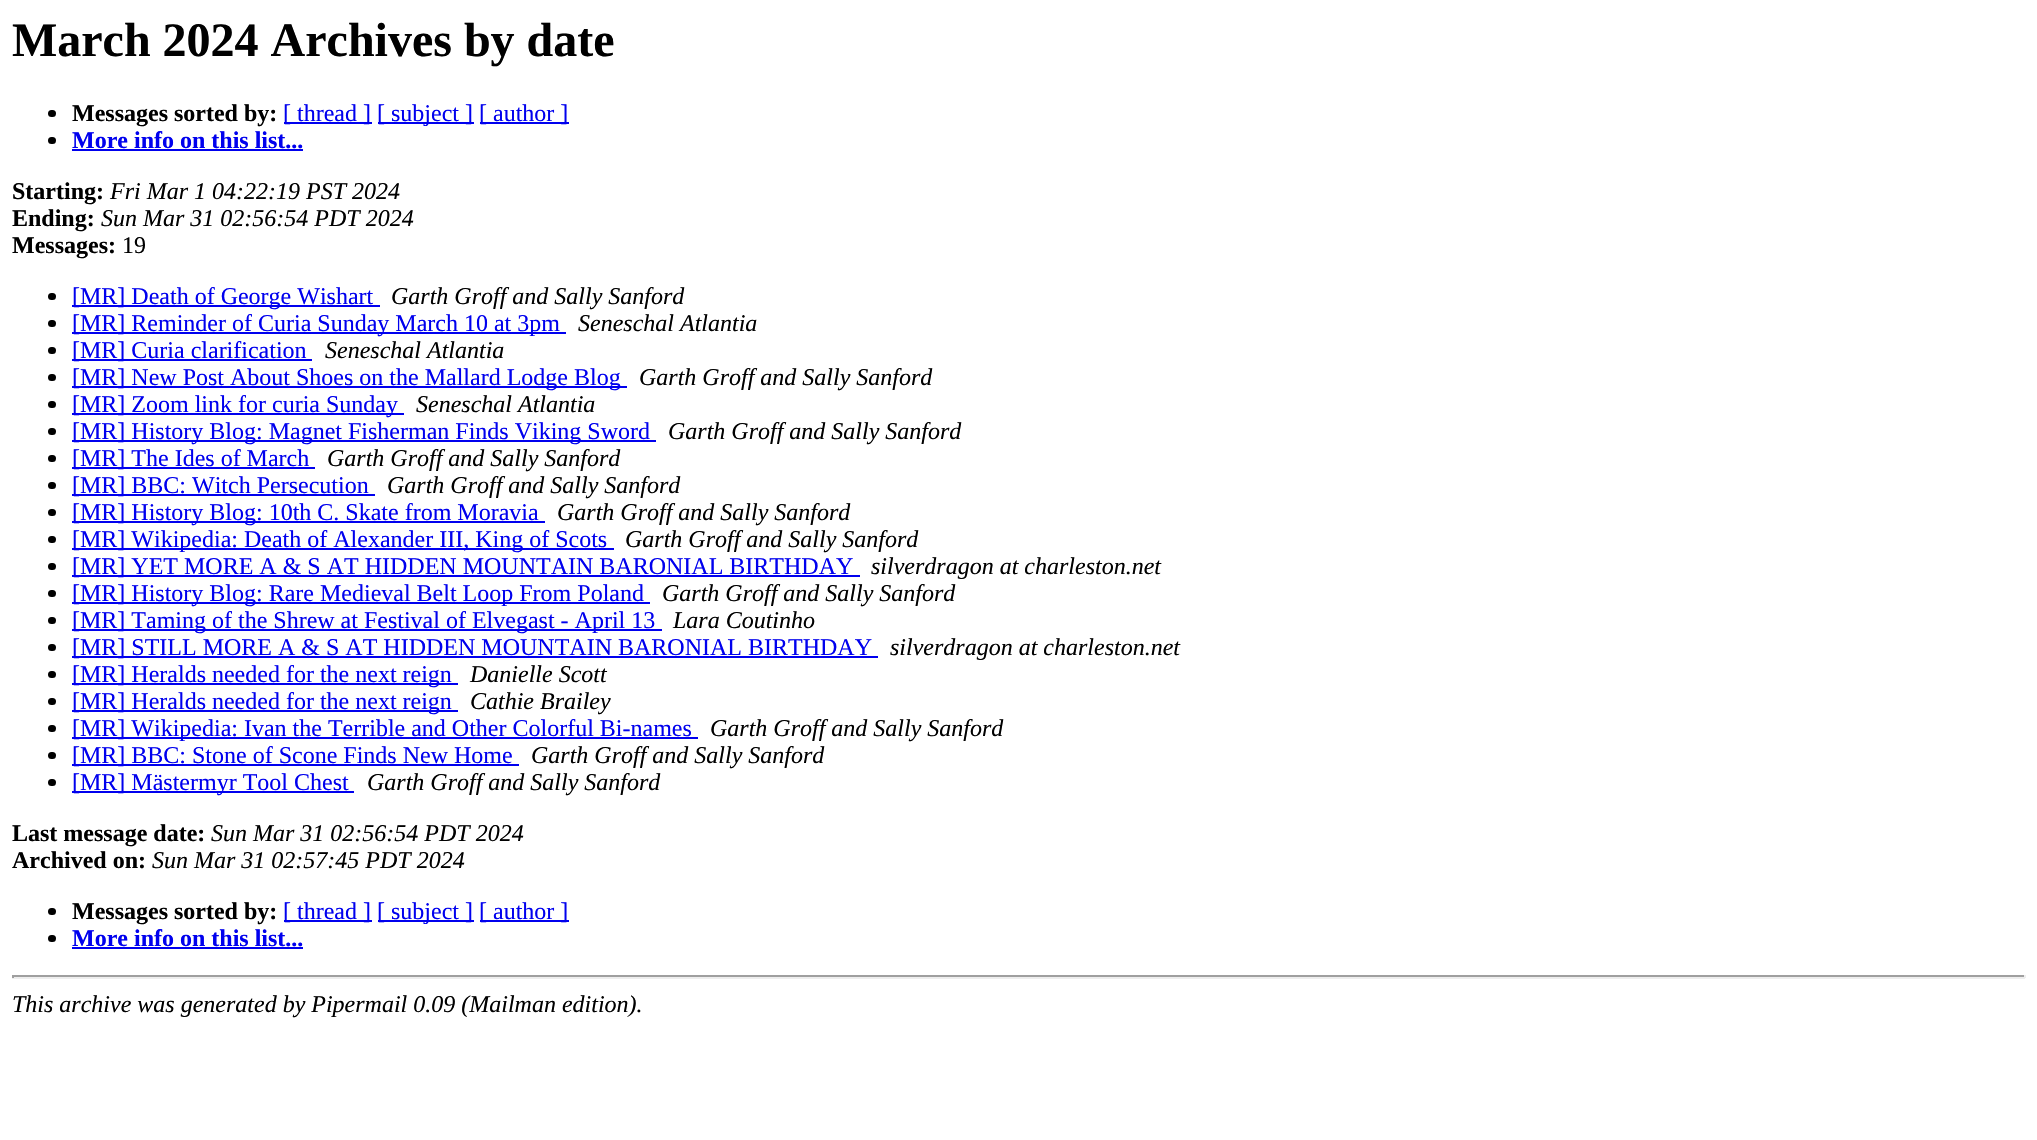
void draw(SkCanvas* c) {
SkPaint p;
p.setAntiAlias(true);
auto F=[&](const char* family, int weight, float size, bool italic = false){SkFontStyle style(weight, SkFontStyle::kNormal_Width,italic ? SkFontStyle::kItalic_Slant : SkFontStyle::kUpright_Slant);SkFont result(fontMgr->matchFamilyStyle(family, style), size);result.setSubpixel(true);return result;};
auto T=[&](const char* s, float x, float y, const SkFont& font){c->drawString(s, x, y, font, p);};
auto R=[&](float x, float y, float w, float h){c->drawRect(SkRect::MakeXYWH(x, y, w, h), p);};
auto Q=[&](float x, float y, float w, float h, float radius){c->drawRoundRect(SkRect::MakeXYWH(x, y, w, h), radius, radius, p);};
c->clear(0xffffffff);
auto f1 = F("Liberation Serif",700,48);
p.setColor(0xff000000);
T("March 2024 Archives by date",12,56,f1);
Q(48,110,8,7,3.5);
auto f2 = F("Liberation Serif",700,24);
T("Messages sorted by:",72,121,f2);
p.setColor(0xff0000ee);
R(284,122,88,2);
auto f3 = F("Liberation Serif",400,24);
T("[ thread ]",283,121,f3);
R(378,122,96,2);
T("[ subject ]",377,121,f3);
R(480,122,89,2);
T("[ author ]",479,121,f3);
p.setColor(0xff000000);
Q(48,137,8,7,3.5);
p.setColor(0xff0000ee);
T("More info on this list...",72,148,f2);
R(72,149,231,2);
p.setColor(0xff000000);
T("Starting:",12,199,f2);
auto f4 = F("Liberation Serif",400,24,true);
T("Fri Mar 1 04:22:19 PST 2024",110,199,f4);
T("Ending:",12,226,f2);
T("Sun Mar 31 02:56:54 PDT 2024",101,226,f4);
T("Messages:",12,253,f2);
T("19",122,253,f3);
Q(48,293,8,7,3.5);
p.setColor(0xff0000ee);
R(72,305,308,2);
T("[MR] Death of George Wishart",72,304,f3);
p.setColor(0xff000000);
T("Garth Groff and Sally Sanford",391,304,f4);
Q(48,320,8,7,3.5);
p.setColor(0xff0000ee);
R(72,332,494,2);
T("[MR] Reminder of Curia Sunday March 10 at 3pm",72,331,f3);
p.setColor(0xff000000);
T("Seneschal Atlantia",578,331,f4);
Q(48,347,8,7,3.5);
p.setColor(0xff0000ee);
R(72,359,240,2);
T("[MR] Curia clarification",72,358,f3);
p.setColor(0xff000000);
T("Seneschal Atlantia",325,358,f4);
Q(48,374,8,7,3.5);
p.setColor(0xff0000ee);
R(72,386,555,2);
T("[MR] New Post About Shoes on the Mallard Lodge Blog",72,385,f3);
p.setColor(0xff000000);
T("Garth Groff and Sally Sanford",639,385,f4);
Q(48,401,8,7,3.5);
p.setColor(0xff0000ee);
R(72,413,332,2);
T("[MR] Zoom link for curia Sunday",72,412,f3);
p.setColor(0xff000000);
T("Seneschal Atlantia",416,412,f4);
Q(48,428,8,7,3.5);
p.setColor(0xff0000ee);
R(72,440,584,2);
T("[MR] History Blog: Magnet Fisherman Finds Viking Sword",72,439,f3);
p.setColor(0xff000000);
T("Garth Groff and Sally Sanford",668,439,f4);
Q(48,455,8,7,3.5);
p.setColor(0xff0000ee);
R(72,467,243,2);
T("[MR] The Ides of March",72,466,f3);
p.setColor(0xff000000);
T("Garth Groff and Sally Sanford",327,466,f4);
Q(48,482,8,7,3.5);
p.setColor(0xff0000ee);
R(72,494,303,2);
T("[MR] BBC: Witch Persecution",72,493,f3);
p.setColor(0xff000000);
T("Garth Groff and Sally Sanford",387,493,f4);
Q(48,509,8,7,3.5);
p.setColor(0xff0000ee);
R(72,521,473,2);
T("[MR] History Blog: 10th C. Skate from Moravia",72,520,f3);
p.setColor(0xff000000);
T("Garth Groff and Sally Sanford",557,520,f4);
Q(48,536,8,7,3.5);
p.setColor(0xff0000ee);
R(72,548,542,2);
T("[MR] Wikipedia: Death of Alexander III, King of Scots",72,547,f3);
p.setColor(0xff000000);
T("Garth Groff and Sally Sanford",625,547,f4);
Q(48,563,8,7,3.5);
p.setColor(0xff0000ee);
R(72,575,788,2);
T("[MR] YET MORE A & S AT HIDDEN MOUNTAIN BARONIAL BIRTHDAY",72,574,f3);
p.setColor(0xff000000);
T("silverdragon at charleston.net",871,574,f4);
Q(48,590,8,7,3.5);
p.setColor(0xff0000ee);
R(72,602,578,2);
T("[MR] History Blog: Rare Medieval Belt Loop From Poland",72,601,f3);
p.setColor(0xff000000);
T("Garth Groff and Sally Sanford",662,601,f4);
Q(48,617,8,7,3.5);
p.setColor(0xff0000ee);
R(72,629,590,2);
T("[MR] Taming of the Shrew at Festival of Elvegast - April 13",72,628,f3);
p.setColor(0xff000000);
T("Lara Coutinho",673,628,f4);
Q(48,644,8,7,3.5);
p.setColor(0xff0000ee);
R(72,656,806,2);
T("[MR] STILL MORE A & S AT HIDDEN MOUNTAIN BARONIAL BIRTHDAY",72,655,f3);
p.setColor(0xff000000);
T("silverdragon at charleston.net",890,655,f4);
Q(48,671,8,7,3.5);
p.setColor(0xff0000ee);
R(72,683,386,2);
T("[MR] Heralds needed for the next reign",72,682,f3);
p.setColor(0xff000000);
T("Danielle Scott",470,682,f4);
Q(48,698,8,7,3.5);
p.setColor(0xff0000ee);
R(72,710,386,2);
T("[MR] Heralds needed for the next reign",72,709,f3);
p.setColor(0xff000000);
T("Cathie Brailey",470,709,f4);
Q(48,725,8,7,3.5);
p.setColor(0xff0000ee);
R(72,737,626,2);
T("[MR] Wikipedia: Ivan the Terrible and Other Colorful Bi-names",72,736,f3);
p.setColor(0xff000000);
T("Garth Groff and Sally Sanford",710,736,f4);
Q(48,752,8,7,3.5);
p.setColor(0xff0000ee);
R(72,764,447,2);
T("[MR] BBC: Stone of Scone Finds New Home",72,763,f3);
p.setColor(0xff000000);
T("Garth Groff and Sally Sanford",531,763,f4);
Q(48,779,8,7,3.5);
p.setColor(0xff0000ee);
R(72,791,282,2);
T("[MR] Mästermyr Tool Chest",72,790,f3);
p.setColor(0xff000000);
T("Garth Groff and Sally Sanford",367,790,f4);
T("Last message date:",12,841,f2);
T("Sun Mar 31 02:56:54 PDT 2024",211,841,f4);
T("Archived on:",12,868,f2);
T("Sun Mar 31 02:57:45 PDT 2024",152,868,f4);
Q(48,908,8,7,3.5);
T("Messages sorted by:",72,919,f2);
p.setColor(0xff0000ee);
R(284,920,88,2);
T("[ thread ]",283,919,f3);
R(378,920,96,2);
T("[ subject ]",377,919,f3);
R(480,920,89,2);
T("[ author ]",479,919,f3);
p.setColor(0xff000000);
Q(48,935,8,7,3.5);
p.setColor(0xff0000ee);
T("More info on this list...",72,946,f2);
R(72,947,231,2);
p.setColor(0xff9f9f9f);
R(12,975,2013,2);
p.setColor(0xffeeeeee);
R(2024,975,2,3);
R(12,977,2013,2);
p.setColor(0xff9f9f9f);
R(12,975,2,3);
p.setColor(0xff000000);
T("This archive was generated by Pipermail 0.09 (Mailman edition).",12,1012,f4);
}
